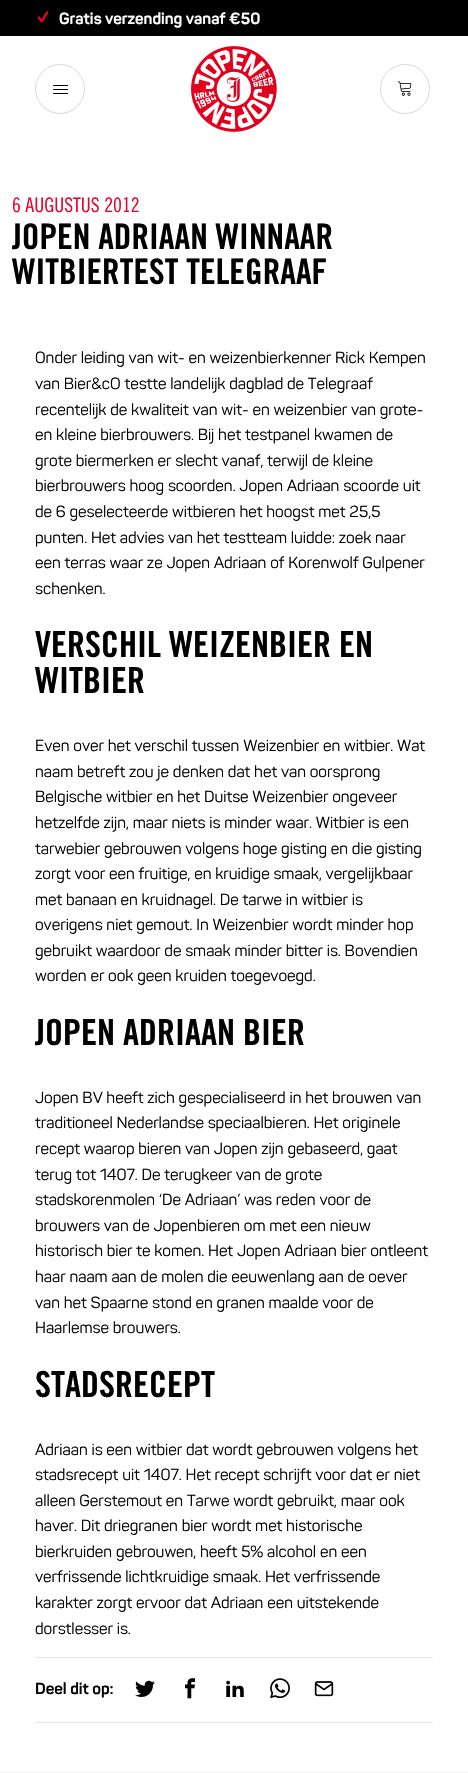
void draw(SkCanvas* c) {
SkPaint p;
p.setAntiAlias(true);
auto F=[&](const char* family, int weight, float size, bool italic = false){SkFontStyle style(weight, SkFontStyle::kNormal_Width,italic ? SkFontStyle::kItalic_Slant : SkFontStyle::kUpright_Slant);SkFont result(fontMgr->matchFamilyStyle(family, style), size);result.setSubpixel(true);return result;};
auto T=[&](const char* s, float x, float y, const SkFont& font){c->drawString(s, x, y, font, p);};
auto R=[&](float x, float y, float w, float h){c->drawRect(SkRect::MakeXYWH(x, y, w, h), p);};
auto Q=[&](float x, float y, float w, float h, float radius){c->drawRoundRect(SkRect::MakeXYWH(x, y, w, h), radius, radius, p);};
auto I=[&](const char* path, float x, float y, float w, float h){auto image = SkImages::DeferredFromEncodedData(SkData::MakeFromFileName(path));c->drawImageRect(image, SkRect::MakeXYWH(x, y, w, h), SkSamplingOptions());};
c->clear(0xffffffff);
p.setColor(0xff000000);
R(0,0,468,36);
I("1.png",37,11,12,12);
auto f1 = F("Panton",700,16);
p.setColor(0xffffffff);
T("Gratis verzending vanaf €50",59,24,f1);
p.setStroke(true);
p.setStrokeWidth(1);
p.setColor(0xffd8d8d8);
c->drawCircle(60,89,24.5,p);
p.setStroke(false);
p.setColor(0xff000000);
Q(53,85,15,1,.5);
Q(53,89,15,1,.5);
Q(53,93,15,1,.5);
I("2.png",191,46,86,86);
p.setStroke(true);
p.setColor(0xffd8d8d8);
c->drawCircle(405,89,24.5,p);
I("3.png",397,81,15,15);
auto f2 = F("Trade Gothic",400,20);
p.setStroke(false);
p.setColor(0xffea0129);
T("6 AUGUSTUS 2012",12,212,f2);
auto f3 = F("Trade Gothic",700,35.25);
p.setColor(0xff000000);
T("JOPEN ADRIAAN WINNAAR",12,249,f3);
T("WITBIERTEST TELEGRAAF",12,284,f3);
auto f4 = F("Panton",400,16);
T("Onder leiding van wit- en weizenbierkenner Rick Kempen",35,363,f4);
T("van Bier&cO testte landelijk dagblad de Telegraaf",35,389,f4);
T("recentelijk de kwaliteit van wit- en weizenbier van grote-",35,415,f4);
T("en kleine bierbrouwers. Bij het testpanel kwamen de",35,440,f4);
T("grote biermerken er slecht vanaf, terwijl de kleine",35,466,f4);
T("bierbrouwers hoog scoorden. Jopen Adriaan scoorde uit",35,491,f4);
T("de 6 geselecteerde witbieren het hoogst met 25,5",35,517,f4);
T("punten. Het advies van het testteam luidde: zoek naar",35,543,f4);
T("een terras waar ze Jopen Adriaan of Korenwolf Gulpener",35,568,f4);
T("schenken.",35,594,f4);
auto f5 = F("Trade Gothic",700,36);
T("VERSCHIL WEIZENBIER EN",35,657,f5);
T("WITBIER",35,693,f5);
T("Even over het verschil tussen Weizenbier en witbier. Wat",35,751,f4);
T("naam betreft zou je denken dat het van oorsprong",35,777,f4);
T("Belgische witbier en het Duitse Weizenbier ongeveer",35,802,f4);
T("hetzelfde zijn, maar niets is minder waar. Witbier is een",35,828,f4);
T("tarwebier gebrouwen volgens hoge gisting en die gisting",35,854,f4);
T("zorgt voor een fruitige, en kruidige smaak, vergelijkbaar",35,879,f4);
T("met banaan en kruidnagel. De tarwe in witbier is",35,905,f4);
T("overigens niet gemout. In Weizenbier wordt minder hop",35,930,f4);
T("gebruikt waardoor de smaak minder bitter is. Bovendien",35,956,f4);
T("worden er ook geen kruiden toegevoegd.",35,981,f4);
T("JOPEN ADRIAAN BIER",35,1045,f5);
T("Jopen BV heeft zich gespecialiseerd in het brouwen van",35,1103,f4);
T("traditioneel Nederlandse speciaalbieren. Het originele",35,1128,f4);
T("recept waarop bieren van Jopen zijn gebaseerd, gaat",35,1154,f4);
T("terug tot 1407. De terugkeer van de grote",35,1180,f4);
T("stadskorenmolen ‘De Adriaan’ was reden voor de",35,1205,f4);
T("brouwers van de Jopenbieren om met een nieuw",35,1231,f4);
T("historisch bier te komen. Het Jopen Adriaan bier ontleent",35,1256,f4);
T("haar naam aan de molen die eeuwenlang aan de oever",35,1282,f4);
T("van het Spaarne stond en granen maalde voor de",35,1308,f4);
T("Haarlemse brouwers.",35,1333,f4);
T("STADSRECEPT",35,1397,f5);
T("Adriaan is een witbier dat wordt gebrouwen volgens het",35,1455,f4);
T("stadsrecept uit 1407. Het recept schrijft voor dat er niet",35,1480,f4);
T("alleen Gerstemout en Tarwe wordt gebruikt, maar ook",35,1506,f4);
T("haver. Dit driegranen bier wordt met historische",35,1531,f4);
T("bierkruiden gebrouwen, heeft 5% alcohol en een",35,1557,f4);
T("verfrissende lichtkruidige smaak. Het verfrissende",35,1582,f4);
T("karakter zorgt ervoor dat Adriaan een uitstekende",35,1608,f4);
T("dorstlesser is.",35,1634,f4);
p.setColor(0xffe6e6e6);
R(35,1657,398,1);
R(35,1722,398,1);
p.setColor(0xff000000);
T("Deel dit op:",35,1694,f1);
I("4.png",135,1680,20,17);
I("5.png",185,1678,10,21);
I("6.png",226,1680,18,17);
I("7.png",270,1678,20,21);
I("8.png",314,1681,20,16);
p.setColor(0xfff6f6f6);
R(0,1771,468,2);
}
